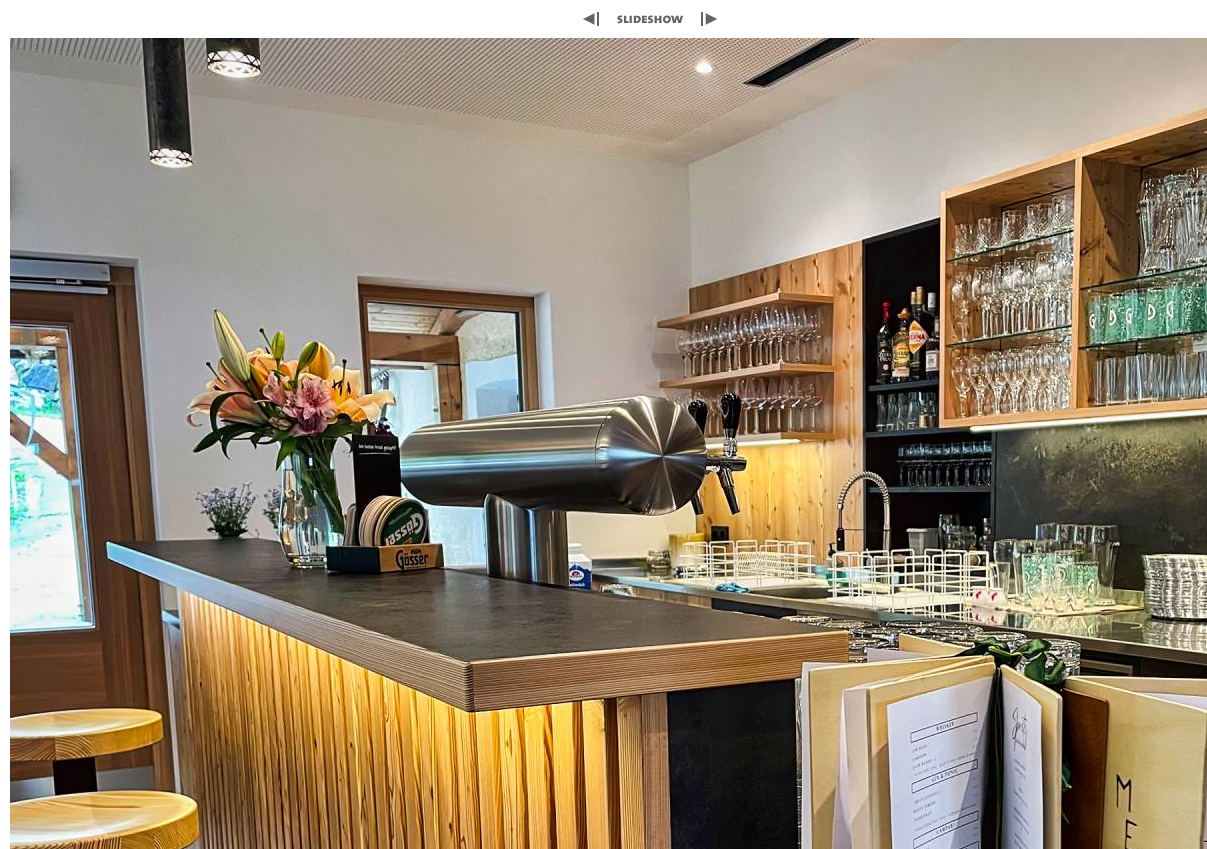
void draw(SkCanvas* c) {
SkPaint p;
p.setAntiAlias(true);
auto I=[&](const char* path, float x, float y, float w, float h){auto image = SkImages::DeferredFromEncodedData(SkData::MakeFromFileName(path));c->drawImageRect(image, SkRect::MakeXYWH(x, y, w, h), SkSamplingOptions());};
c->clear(0xffffffff);
I("1.png",583,12,16,14);
I("2.png",617,15,66,9);
I("3.png",701,12,17,14);
I("4.png",10,38,1197,811);
}
